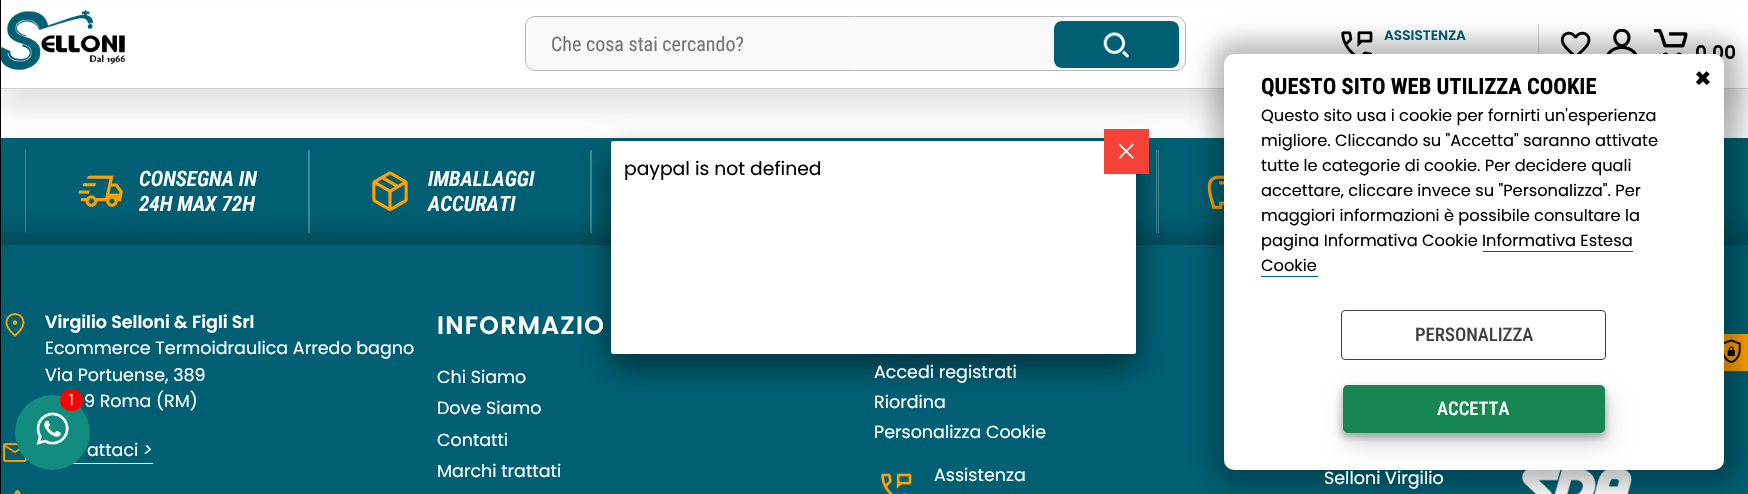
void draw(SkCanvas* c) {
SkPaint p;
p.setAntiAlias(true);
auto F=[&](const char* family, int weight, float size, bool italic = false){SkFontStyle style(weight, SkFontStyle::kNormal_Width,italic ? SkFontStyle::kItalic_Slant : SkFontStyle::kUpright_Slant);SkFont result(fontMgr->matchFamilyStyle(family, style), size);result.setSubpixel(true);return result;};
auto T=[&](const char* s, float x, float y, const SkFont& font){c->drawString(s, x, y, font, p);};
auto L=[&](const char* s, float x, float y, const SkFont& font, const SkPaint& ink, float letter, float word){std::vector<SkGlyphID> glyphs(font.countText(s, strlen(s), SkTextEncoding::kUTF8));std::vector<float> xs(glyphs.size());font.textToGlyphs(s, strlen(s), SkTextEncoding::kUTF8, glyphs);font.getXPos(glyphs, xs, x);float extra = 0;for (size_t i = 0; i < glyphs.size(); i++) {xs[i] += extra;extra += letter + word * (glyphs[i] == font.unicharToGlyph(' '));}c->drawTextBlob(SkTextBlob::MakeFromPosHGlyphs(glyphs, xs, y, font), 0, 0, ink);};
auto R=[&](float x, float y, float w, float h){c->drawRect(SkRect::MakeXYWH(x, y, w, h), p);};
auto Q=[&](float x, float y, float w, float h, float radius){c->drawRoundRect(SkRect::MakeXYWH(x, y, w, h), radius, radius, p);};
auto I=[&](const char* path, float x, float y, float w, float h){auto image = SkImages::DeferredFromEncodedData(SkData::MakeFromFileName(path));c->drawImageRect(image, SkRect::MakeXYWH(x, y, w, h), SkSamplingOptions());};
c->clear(0xffffffff);
p.setColor(0xff005f73);
R(1,138,1747,107);
p.setColor(0x1a000000);
p.setMaskFilter(SkMaskFilter::MakeBlur(kNormal_SkBlurStyle, 12.5));
c->drawRect(SkRect::MakeXYWH(-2,19,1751,91),p);
p.setMaskFilter(nullptr);
p.setColor(0xffd3d3d3);
R(0,88,1748,1);
p.setColor(0xff428997);
R(308,150,2,83);
R(25,150,1,83);
I("7.png",78,175,45,32);
R(590,150,2,83);
I("8.png",372,171,36,40);
R(1156,150,1,83);
R(1158,150,1,83);
I("9.png",1207,175,17,34);
p.setColor(0x42000000);
p.setMaskFilter(SkMaskFilter::MakeBlur(kNormal_SkBlurStyle, 12.5));
c->drawRect(SkRect::MakeXYWH(-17,234,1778,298),p);
p.setMaskFilter(nullptr);
p.setColor(0xff000000);
R(0,0,1,494);
p.setColor(0xffffffff);
R(1,3,1747,85);
I("1.png",1,10,124,61);
p.setColor(0xfff9f9f9);
c->drawRoundRect(SkRect::MakeXYWH(525.5,16.5,660,54),9.5,9.5,p);
p.setStroke(true);
p.setStrokeWidth(1);
p.setColor(0xffb7b7b7);
c->drawRoundRect(SkRect::MakeXYWH(525.5,16.5,660,54),9.5,9.5,p);
auto f1 = F("Roboto Condensed",400,20);
p.setStroke(false);
p.setColor(0xff757575);
T("Che cosa stai cercando?",551,51,f1);
p.setColor(0xff005f73);
Q(1054,21,125,47,8);
I("2.png",1103,32,26,26);
p.setColor(0xffd4d4d4);
R(1538,24,1,30);
I("3.png",1341,31,32,23);
auto f2 = F("Poppins",600,13.75);
p.setColor(0xff005f73);
T("ASSISTENZA",1384,40,f2);
I("4.png",1560,31,31,23);
I("5.png",1606,29,32,25);
I("6.png",1654,29,34,25);
auto f3 = F("Poppins",600,18.75);
p.setColor(0xff000000);
T("0,00",1695,59,f3);
auto f4 = F("Roboto Condensed",600,21.25,true);
p.setColor(0xffffffff);
T("CONSEGNA IN",139,186,f4);
T("24H MAX 72H",139,211,f4);
T("IMBALLAGGI",428,186,f4);
T("ACCURATI",428,211,f4);
p.setColor(0xff005f73);
R(1,245,1747,249);
p.setColor(0x80000000);
p.setMaskFilter(SkMaskFilter::MakeBlur(kNormal_SkBlurStyle, 15.5));
c->drawRoundRect(SkRect::MakeXYWH(611,154,525,212),2.5,2.5,p);
p.setMaskFilter(nullptr);
p.setColor(0xffffffff);
Q(611,141,525,213,2.5);
auto f5 = F("Poppins",400,18.75);
p.setColor(0xff000000);
T("paypal is not defined",624,175,f5);
p.setColor(0xfff44336);
R(1104,129,45,45);
I("10.png",1118,143,16,16);
I("15.png",1521,470,111,24);
p.setColor(0xffffa102);
R(1724,334,24,37);
I("16.png",1724,339,17,25);
p.setColor(0x47000000);
p.setMaskFilter(SkMaskFilter::MakeBlur(kNormal_SkBlurStyle, 12.5));
c->drawRoundRect(SkRect::MakeXYWH(1213,41,527,444),24,24,p);
p.setMaskFilter(nullptr);
p.setColor(0xffffffff);
Q(1224,54,500,416,10);
auto f6 = F("Roboto Condensed",700,22.5);
p.setColor(0xff000000);
T("QUESTO SITO WEB UTILIZZA COOKIE",1261,94,f6);
auto f7 = F("Poppins",400,16.25);
T("Questo sito usa i cookie per fornirti un'esperienza",1261,121,f7);
T("migliore. Cliccando su \"Accetta\" saranno attivate",1261,146,f7);
T("tutte le categorie di cookie. Per decidere quali",1261,171,f7);
T("accettare, cliccare invece su \"Personalizza\". Per",1261,196,f7);
T("maggiori informazioni è possibile consultare la",1261,221,f7);
T("pagina Informativa Cookie Informativa Estesa",1261,246,f7);
T("Cookie",1261,271,f7);
p.setColor(0xff005f73);
R(1483,251,150,1);
R(1261,276,57,1);
auto f8 = F("Poppins",700,28);
p.setColor(0xff000000);
T("×",1694,88,f8);
p.setStroke(true);
p.setColor(0xff424141);
c->drawRoundRect(SkRect::MakeXYWH(1341.5,310.5,264,49),3.5,3.5,p);
auto f9 = F("Roboto Condensed",500,18.75);
p.setStroke(false);
T("PERSONALIZZA",1415,341,f9);
p.setColor(0x40000000);
p.setMaskFilter(SkMaskFilter::MakeBlur(kNormal_SkBlurStyle, 3));
c->drawRoundRect(SkRect::MakeXYWH(1341,388,265,50),6,6,p);
p.setMaskFilter(nullptr);
p.setColor(0x26000000);
p.setMaskFilter(SkMaskFilter::MakeBlur(kNormal_SkBlurStyle, 11));
c->drawRoundRect(SkRect::MakeXYWH(1346,398,263,47),5,5,p);
p.setMaskFilter(nullptr);
p.setColor(0xff198754);
Q(1343,385,262,48,5);
p.setColor(0xffffffff);
T("ACCETTA",1437,415,f9);
I("11.png",5,313,20,24);
auto f10 = F("Poppins",600,17.5);
T("Virgilio Selloni & Figli Srl",45,328,f10);
auto f11 = F("Poppins",400,17.5);
T("Ecommerce Termoidraulica Arredo bagno",45,354,f11);
T("Via Portuense, 389",45,381,f11);
T("9 Roma (RM)",84,407,f11);
I("12.png",3,443,24,19);
T("attaci",87,456,f11);
R(72,463,81,1);
auto f12 = F("Poppins",400,17.5,true);
T(">",143,456,f12);
I("13.png",14,489,7,5);
auto f13 = F("Poppins",600,25);
L("INFORMAZIO",437,334,f13,p,1.25,0);
T("Chi Siamo",437,383,f11);
T("Dove Siamo",437,414,f11);
T("Contatti",437,446,f11);
T("Marchi trattati",437,477,f11);
T("Accedi registrati",874,378,f11);
T("Riordina",874,408,f11);
T("Personalizza Cookie",874,438,f11);
I("14.png",881,473,31,21);
T("Assistenza",934,481,f11);
T("Selloni Virgilio",1324,484,f11);
p.setColor(0xff128c7e);
c->drawCircle(52.5,432.5,37.5,p);
p.setColor(0xffff0000);
Q(60,389,23,22,11);
auto f14 = F("Poppins",400,15);
p.setColor(0xffffffff);
T("1",69,405,f14);
I("17.png",36,412,33,33);
}
